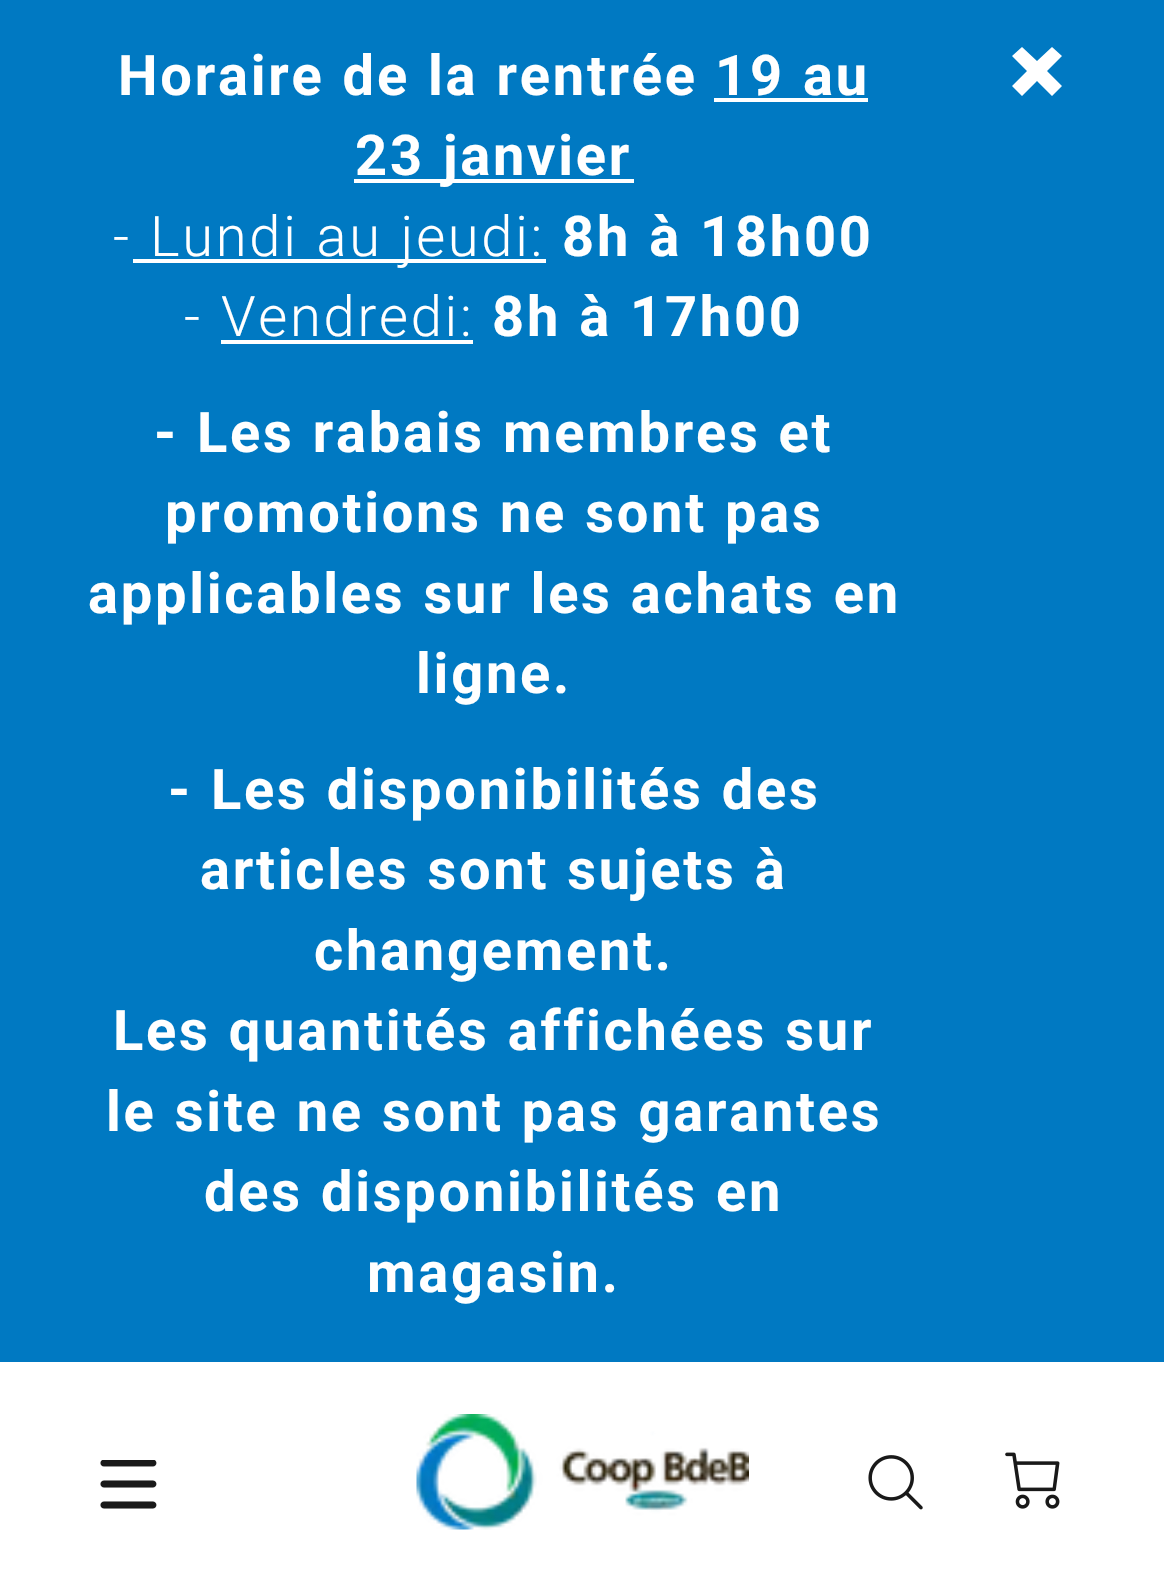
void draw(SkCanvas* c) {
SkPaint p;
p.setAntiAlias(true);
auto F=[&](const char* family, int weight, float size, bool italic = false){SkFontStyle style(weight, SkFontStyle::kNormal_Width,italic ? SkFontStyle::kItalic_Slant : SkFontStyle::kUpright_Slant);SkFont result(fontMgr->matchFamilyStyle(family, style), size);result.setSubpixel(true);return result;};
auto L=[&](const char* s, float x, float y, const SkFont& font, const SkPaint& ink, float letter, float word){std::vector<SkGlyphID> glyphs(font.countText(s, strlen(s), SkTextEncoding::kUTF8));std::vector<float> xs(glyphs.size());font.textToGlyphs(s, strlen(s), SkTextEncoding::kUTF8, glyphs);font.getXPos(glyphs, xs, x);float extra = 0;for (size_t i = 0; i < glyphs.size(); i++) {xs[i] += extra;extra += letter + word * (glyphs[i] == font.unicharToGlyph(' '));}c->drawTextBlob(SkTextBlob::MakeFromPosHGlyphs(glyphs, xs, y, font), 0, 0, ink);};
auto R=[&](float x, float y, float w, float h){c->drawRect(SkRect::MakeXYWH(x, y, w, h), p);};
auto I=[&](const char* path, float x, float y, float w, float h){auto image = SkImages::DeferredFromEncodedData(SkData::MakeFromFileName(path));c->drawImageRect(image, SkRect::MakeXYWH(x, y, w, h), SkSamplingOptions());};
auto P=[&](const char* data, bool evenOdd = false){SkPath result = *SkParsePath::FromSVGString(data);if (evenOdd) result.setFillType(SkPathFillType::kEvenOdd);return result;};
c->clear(0xffffffff);
p.setColor(0xff0079c2);
R(0,0,1164,1362);
auto f1 = F("Roboto",700,56);
p.setColor(0xffffffff);
L("Horaire de la rentrée",118,95,f1,p,2.75,1.5);
L("19 au",715,95,f1,p,2.75,1.5);
R(714,98,154,4);
R(354,179,280,4);
L("23 janvier",355,175,f1,p,2.75,1.5);
auto f2 = F("Roboto",300,56);
L("-",113,256,f2,p,2.75,0);
R(133,259,413,4);
L("Lundi au jeudi:",150,256,f2,p,2.75,1.5);
L("8h à 18h00",562,256,f1,p,2.75,1.5);
L("-",184,336,f2,p,2.75,0);
L("Vendredi:",221,336,f2,p,2.75,0);
R(221,340,252,4);
L("8h à 17h00",492,336,f1,p,2.75,1.5);
L("- Les rabais membres et",154,452,f1,p,2.75,1.5);
L("promotions ne sont pas",165,532,f1,p,2.75,1.5);
L("applicables sur les achats en",88,613,f1,p,2.75,1.5);
L("ligne.",416,693,f1,p,2.75,0);
L("- Les disponibilités des",168,809,f1,p,2.75,1.5);
L("articles sont sujets à",200,889,f1,p,2.75,1.5);
L("changement.",314,970,f1,p,2.75,0);
L("Les quantités affichées sur",113,1050,f1,p,2.75,1.5);
L("le site ne sont pas garantes",106,1131,f1,p,2.75,1.5);
L("des disponibilités en",204,1211,f1,p,2.75,1.5);
L("magasin.",367,1292,f1,p,2.75,0);
c->drawPath(P("M1062 56l-15 15l15 15l-10 10l-15-15l-15 15l-10-10l15-15l-15-15l10-9l15 14l15-14z"),p);
I("1.png",100,1460,57,49);
I("2.png",416,1414,333,116);
I("3.png",868,1455,55,55);
I("4.png",1005,1452,55,57);
}
